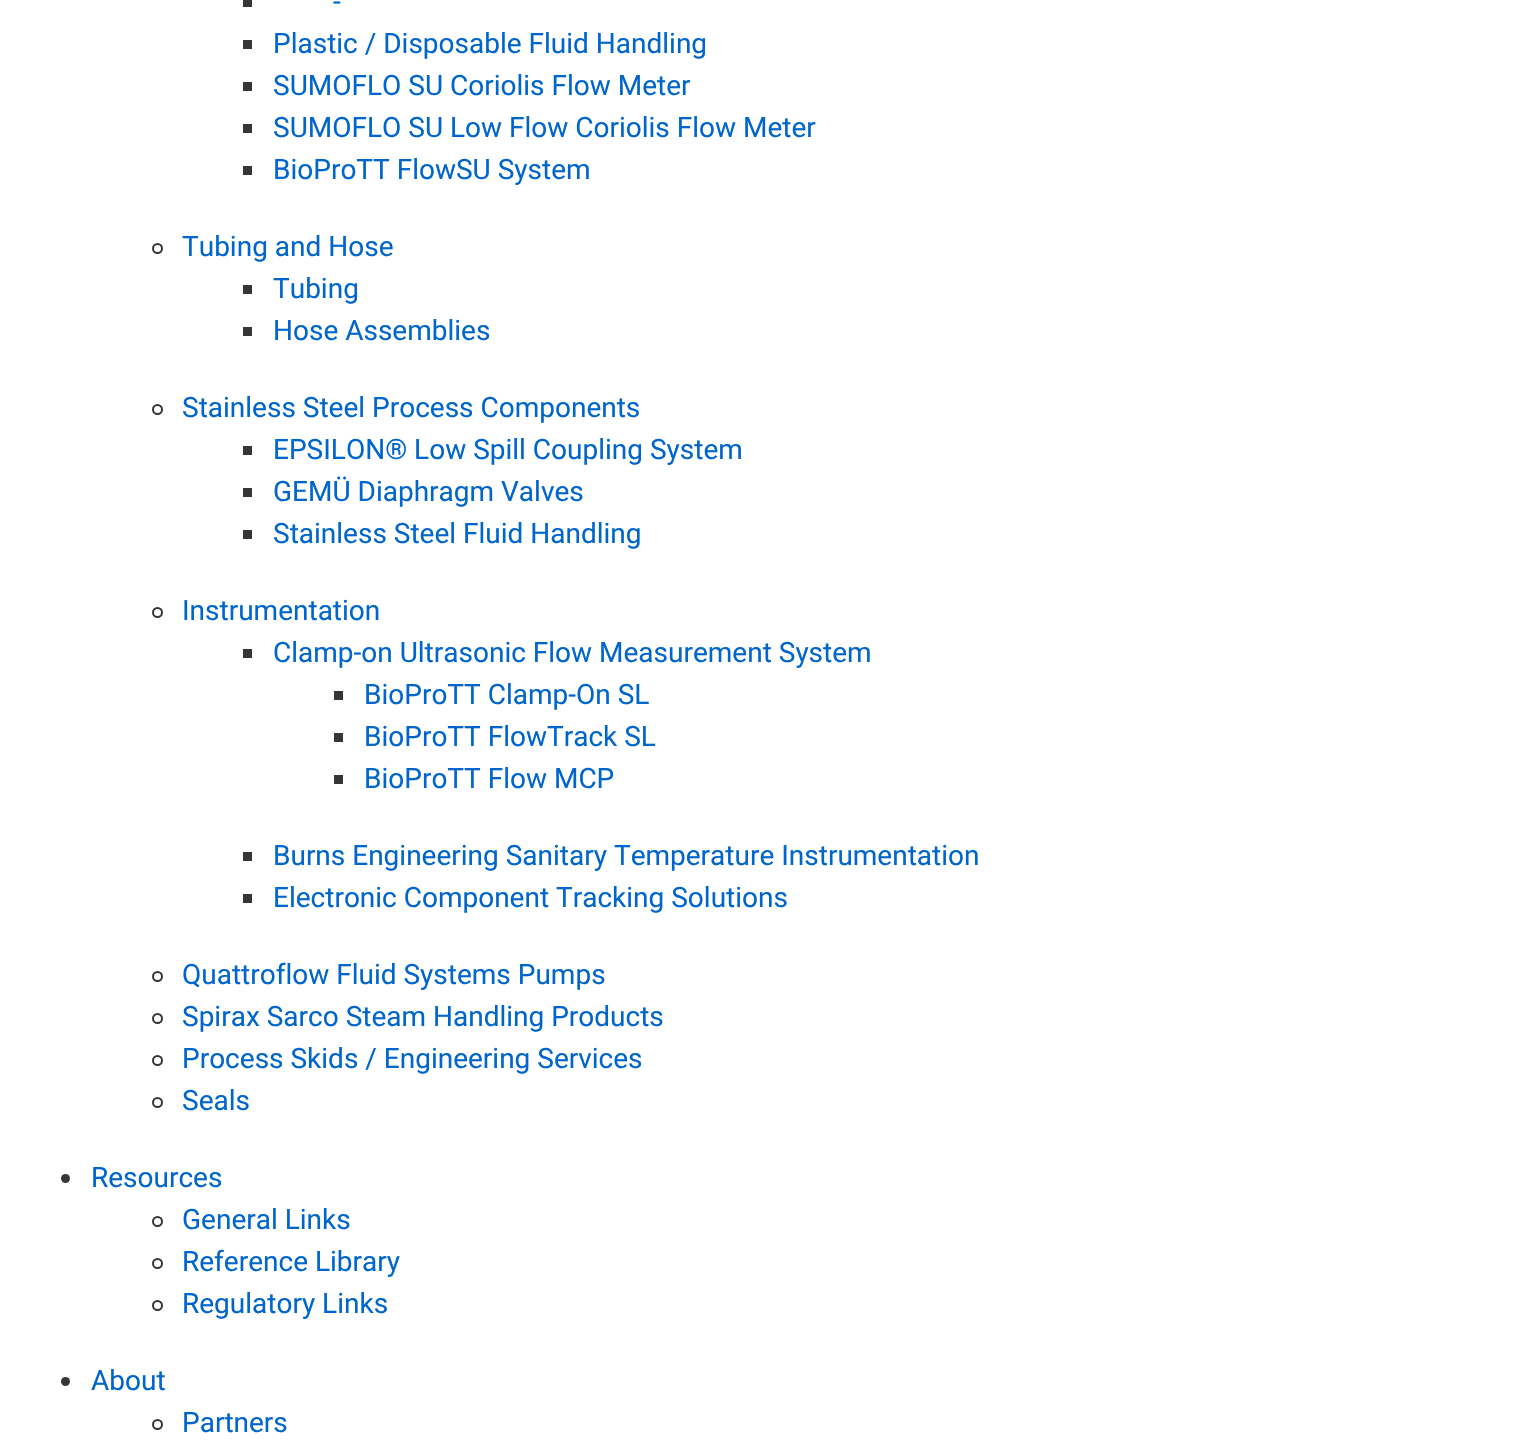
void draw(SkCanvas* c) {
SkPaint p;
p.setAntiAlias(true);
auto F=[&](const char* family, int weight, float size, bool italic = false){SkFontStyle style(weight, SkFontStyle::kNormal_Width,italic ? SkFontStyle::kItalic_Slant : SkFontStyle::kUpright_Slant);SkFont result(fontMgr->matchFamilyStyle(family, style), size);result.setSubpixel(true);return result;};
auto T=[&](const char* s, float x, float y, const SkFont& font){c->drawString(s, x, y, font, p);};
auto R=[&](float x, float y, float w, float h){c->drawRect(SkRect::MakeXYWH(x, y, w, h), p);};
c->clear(0xffffffff);
p.setColor(0xff363636);
R(243,0,9,7);
auto f1 = F("Roboto",400,28);
p.setColor(0xff0066cc);
T("-",333,11,f1);
p.setColor(0xff363636);
R(243,40,9,9);
p.setColor(0xff0066cc);
T("Plastic / Disposable Fluid Handling",273,53,f1);
p.setColor(0xff363636);
R(243,82,9,9);
p.setColor(0xff0066cc);
T("SUMOFLO SU Coriolis Flow Meter",273,95,f1);
p.setColor(0xff363636);
R(243,124,9,9);
p.setColor(0xff0066cc);
T("SUMOFLO SU Low Flow Coriolis Flow Meter",273,137,f1);
p.setColor(0xff363636);
R(243,166,9,9);
p.setColor(0xff0066cc);
T("BioProTT FlowSU System",273,179,f1);
p.setStroke(true);
p.setStrokeWidth(2);
p.setColor(0xff363636);
c->drawCircle(157.5,248.5,4.5,p);
p.setStroke(false);
p.setColor(0xff0066cc);
T("Tubing and Hose",182,256,f1);
p.setColor(0xff363636);
R(243,285,9,9);
p.setColor(0xff0066cc);
T("Tubing",273,298,f1);
p.setColor(0xff363636);
R(243,327,9,9);
p.setColor(0xff0066cc);
T("Hose Assemblies",273,340,f1);
p.setStroke(true);
p.setColor(0xff363636);
c->drawCircle(157.5,409.5,4.5,p);
p.setStroke(false);
p.setColor(0xff0066cc);
T("Stainless Steel Process Components",182,417,f1);
p.setColor(0xff363636);
R(243,446,9,9);
p.setColor(0xff0066cc);
T("EPSILON® Low Spill Coupling System",273,459,f1);
p.setColor(0xff363636);
R(243,488,9,9);
p.setColor(0xff0066cc);
T("GEMÜ Diaphragm Valves",273,501,f1);
p.setColor(0xff363636);
R(243,530,9,9);
p.setColor(0xff0066cc);
T("Stainless Steel Fluid Handling",273,543,f1);
p.setStroke(true);
p.setColor(0xff363636);
c->drawCircle(157.5,612.5,4.5,p);
p.setStroke(false);
p.setColor(0xff0066cc);
T("Instrumentation",182,620,f1);
p.setColor(0xff363636);
R(243,649,9,9);
p.setColor(0xff0066cc);
T("Clamp-on Ultrasonic Flow Measurement System",273,662,f1);
p.setColor(0xff363636);
R(334,691,9,9);
p.setColor(0xff0066cc);
T("BioProTT Clamp-On SL",364,704,f1);
p.setColor(0xff363636);
R(334,733,9,9);
p.setColor(0xff0066cc);
T("BioProTT FlowTrack SL",364,746,f1);
p.setColor(0xff363636);
R(334,775,9,9);
p.setColor(0xff0066cc);
T("BioProTT Flow MCP",364,788,f1);
p.setColor(0xff363636);
R(243,852,9,9);
p.setColor(0xff0066cc);
T("Burns Engineering Sanitary Temperature Instrumentation",273,865,f1);
p.setColor(0xff363636);
R(243,894,9,9);
p.setColor(0xff0066cc);
T("Electronic Component Tracking Solutions",273,907,f1);
p.setStroke(true);
p.setColor(0xff363636);
c->drawCircle(157.5,976.5,4.5,p);
p.setStroke(false);
p.setColor(0xff0066cc);
T("Quattroflow Fluid Systems Pumps",182,984,f1);
p.setStroke(true);
p.setColor(0xff363636);
c->drawCircle(157.5,1018.5,4.5,p);
p.setStroke(false);
p.setColor(0xff0066cc);
T("Spirax Sarco Steam Handling Products",182,1026,f1);
p.setStroke(true);
p.setColor(0xff363636);
c->drawCircle(157.5,1060.5,4.5,p);
p.setStroke(false);
p.setColor(0xff0066cc);
T("Process Skids / Engineering Services",182,1068,f1);
p.setStroke(true);
p.setColor(0xff363636);
c->drawCircle(157.5,1102.5,4.5,p);
p.setStroke(false);
p.setColor(0xff0066cc);
T("Seals",182,1110,f1);
p.setColor(0xff363636);
c->drawCircle(65.5,1178.5,4.5,p);
p.setColor(0xff0066cc);
T("Resources",91,1187,f1);
p.setStroke(true);
p.setColor(0xff363636);
c->drawCircle(157.5,1221.5,4.5,p);
p.setStroke(false);
p.setColor(0xff0066cc);
T("General Links",182,1229,f1);
p.setStroke(true);
p.setColor(0xff363636);
c->drawCircle(157.5,1263.5,4.5,p);
p.setStroke(false);
p.setColor(0xff0066cc);
T("Reference Library",182,1271,f1);
p.setStroke(true);
p.setColor(0xff363636);
c->drawCircle(157.5,1305.5,4.5,p);
p.setStroke(false);
p.setColor(0xff0066cc);
T("Regulatory Links",182,1313,f1);
p.setColor(0xff363636);
c->drawCircle(65.5,1381.5,4.5,p);
p.setColor(0xff0066cc);
T("About",91,1390,f1);
p.setStroke(true);
p.setColor(0xff363636);
c->drawCircle(157.5,1424.5,4.5,p);
p.setStroke(false);
p.setColor(0xff0066cc);
T("Partners",182,1432,f1);
}
